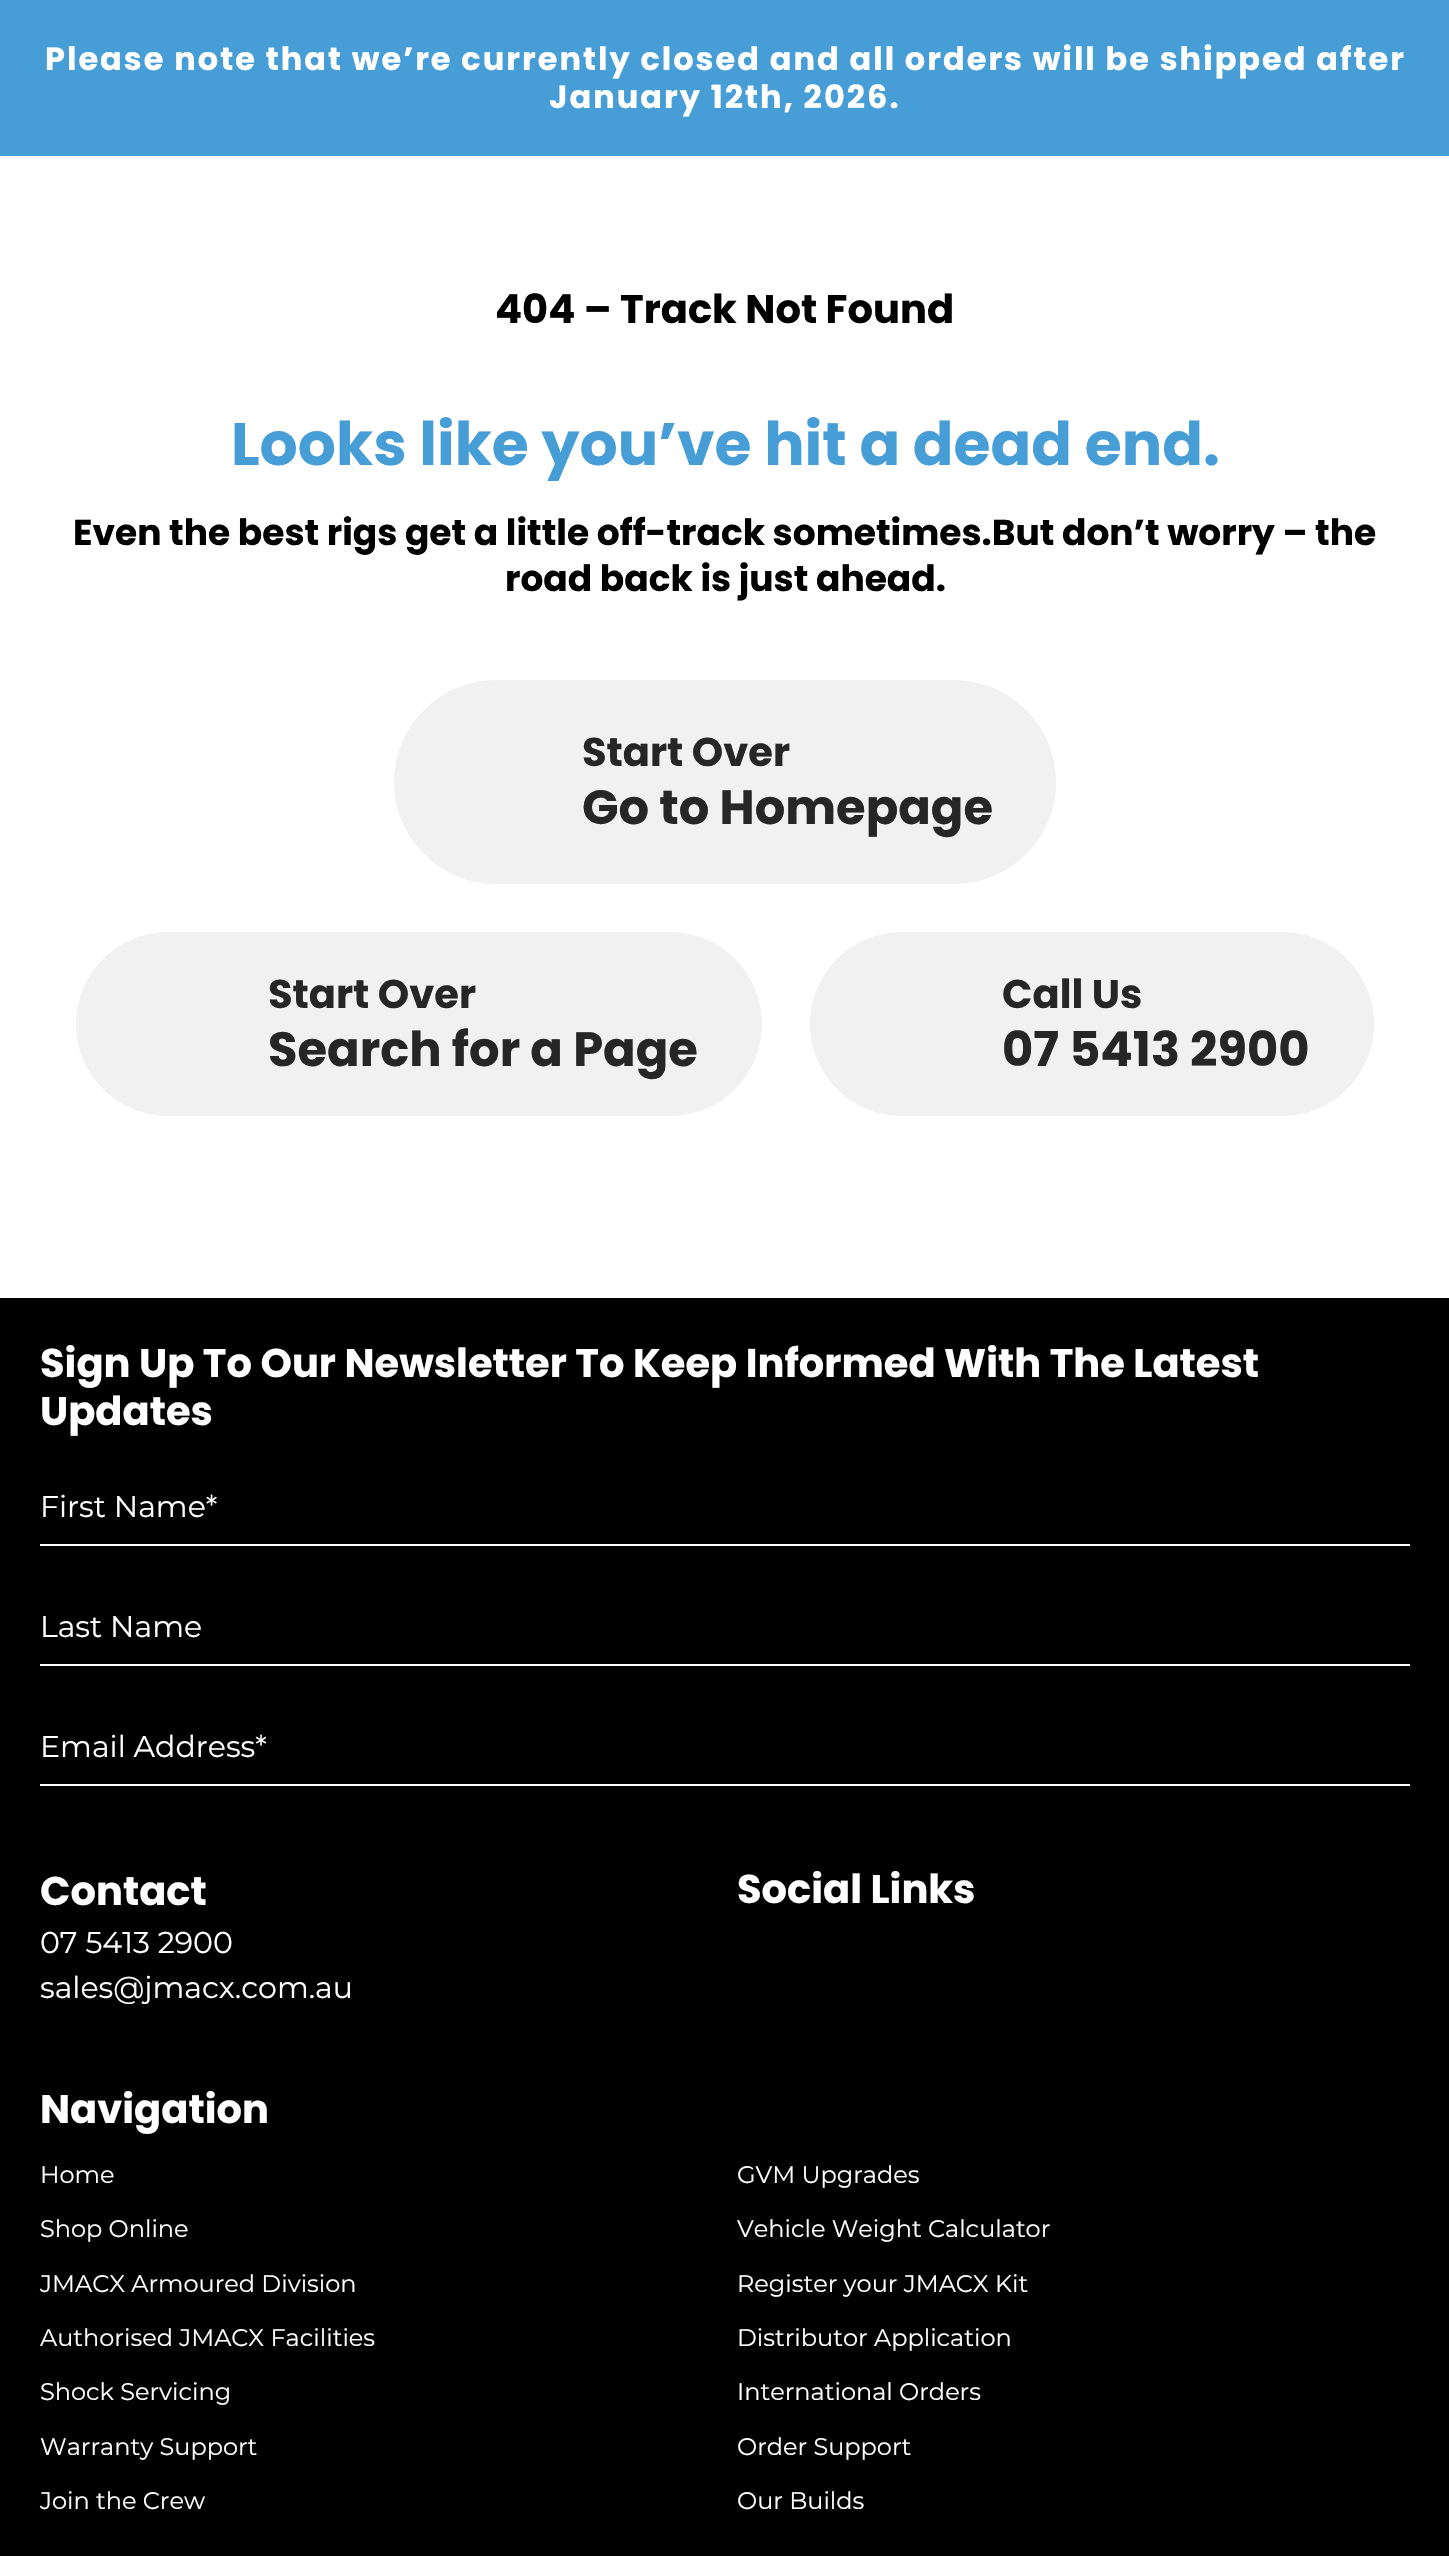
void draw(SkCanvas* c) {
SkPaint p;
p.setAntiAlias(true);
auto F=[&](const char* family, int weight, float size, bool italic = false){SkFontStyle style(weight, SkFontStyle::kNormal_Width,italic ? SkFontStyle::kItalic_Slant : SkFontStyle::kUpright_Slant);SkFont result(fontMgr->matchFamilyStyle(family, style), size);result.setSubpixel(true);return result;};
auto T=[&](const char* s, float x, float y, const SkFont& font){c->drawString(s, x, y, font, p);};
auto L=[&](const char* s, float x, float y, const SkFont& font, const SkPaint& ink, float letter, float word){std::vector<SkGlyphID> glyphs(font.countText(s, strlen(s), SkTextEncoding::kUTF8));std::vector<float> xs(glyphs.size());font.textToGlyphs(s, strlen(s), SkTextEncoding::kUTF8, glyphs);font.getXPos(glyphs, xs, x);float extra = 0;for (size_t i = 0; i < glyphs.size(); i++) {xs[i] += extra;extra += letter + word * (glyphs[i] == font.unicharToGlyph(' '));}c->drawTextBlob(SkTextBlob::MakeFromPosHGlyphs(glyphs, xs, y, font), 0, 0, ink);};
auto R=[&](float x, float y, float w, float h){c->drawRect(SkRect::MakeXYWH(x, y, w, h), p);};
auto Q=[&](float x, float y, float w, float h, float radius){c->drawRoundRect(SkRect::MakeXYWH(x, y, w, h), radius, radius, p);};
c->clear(0xffffffff);
p.setColor(0xff479dd6);
R(0,0,1449,156);
auto f1 = F("Poppins",700,32);
p.setColor(0xffffffff);
L("Please note that we’re currently closed and all orders will be shipped after",45,70,f1,p,2,0);
L("January 12th, 2026.",549,108,f1,p,2,0);
auto f2 = F("Poppins",700,40);
p.setColor(0xff000000);
T("404 – Track Not Found",495,323,f2);
auto f3 = F("Poppins",700,60);
p.setColor(0xff479dd6);
T("Looks like you’ve hit a dead end.",231,465,f3);
auto f4 = F("Poppins",700,36);
p.setColor(0xff000000);
T("Even the best rigs get a little off-track sometimes.But don’t worry – the",73,545,f4);
T("road back is just ahead.",505,591,f4);
p.setColor(0xfff1f1f1);
Q(394,680,662,204,102);
p.setColor(0xff262626);
T("Start Over",582,766,f2);
auto f5 = F("Poppins",700,48);
T("Go to Homepage",582,824,f5);
p.setColor(0xfff1f1f1);
Q(76,932,686,184,92);
p.setColor(0xff262626);
T("Start Over",268,1008,f2);
T("Search for a Page",268,1066,f5);
p.setColor(0xfff1f1f1);
Q(810,932,564,184,92);
p.setColor(0xff262626);
T("Call Us",1002,1008,f2);
T("07 5413 2900",1002,1066,f5);
p.setColor(0xff000000);
R(0,1298,1449,1258);
p.setColor(0xffffffff);
T("Sign Up To Our Newsletter To Keep Informed With The Latest",40,1377,f2);
T("Updates",40,1425,f2);
R(40,1544,1370,2);
auto f6 = F("Montserrat",400,30);
T("First Name*",40,1517,f6);
R(40,1664,1370,2);
T("Last Name",40,1637,f6);
R(40,1784,1370,2);
T("Email Address*",40,1757,f6);
T("Contact",40,1905,f2);
T("07 5413 2900",40,1953,f6);
T("sales@jmacx.com.au",40,1998,f6);
T("Social Links",737,1903,f2);
T("Navigation",40,2123,f2);
auto f7 = F("Montserrat",400,24);
T("Home",40,2183,f7);
T("GVM Upgrades",737,2183,f7);
T("Shop Online",40,2237,f7);
T("Vehicle Weight Calculator",737,2237,f7);
T("JMACX Armoured Division",40,2292,f7);
T("Register your JMACX Kit",737,2292,f7);
T("Authorised JMACX Facilities",40,2346,f7);
T("Distributor Application",737,2346,f7);
T("Shock Servicing",40,2400,f7);
T("International Orders",737,2400,f7);
T("Warranty Support",40,2455,f7);
T("Order Support",737,2455,f7);
T("Join the Crew",40,2509,f7);
T("Our Builds",737,2509,f7);
}
